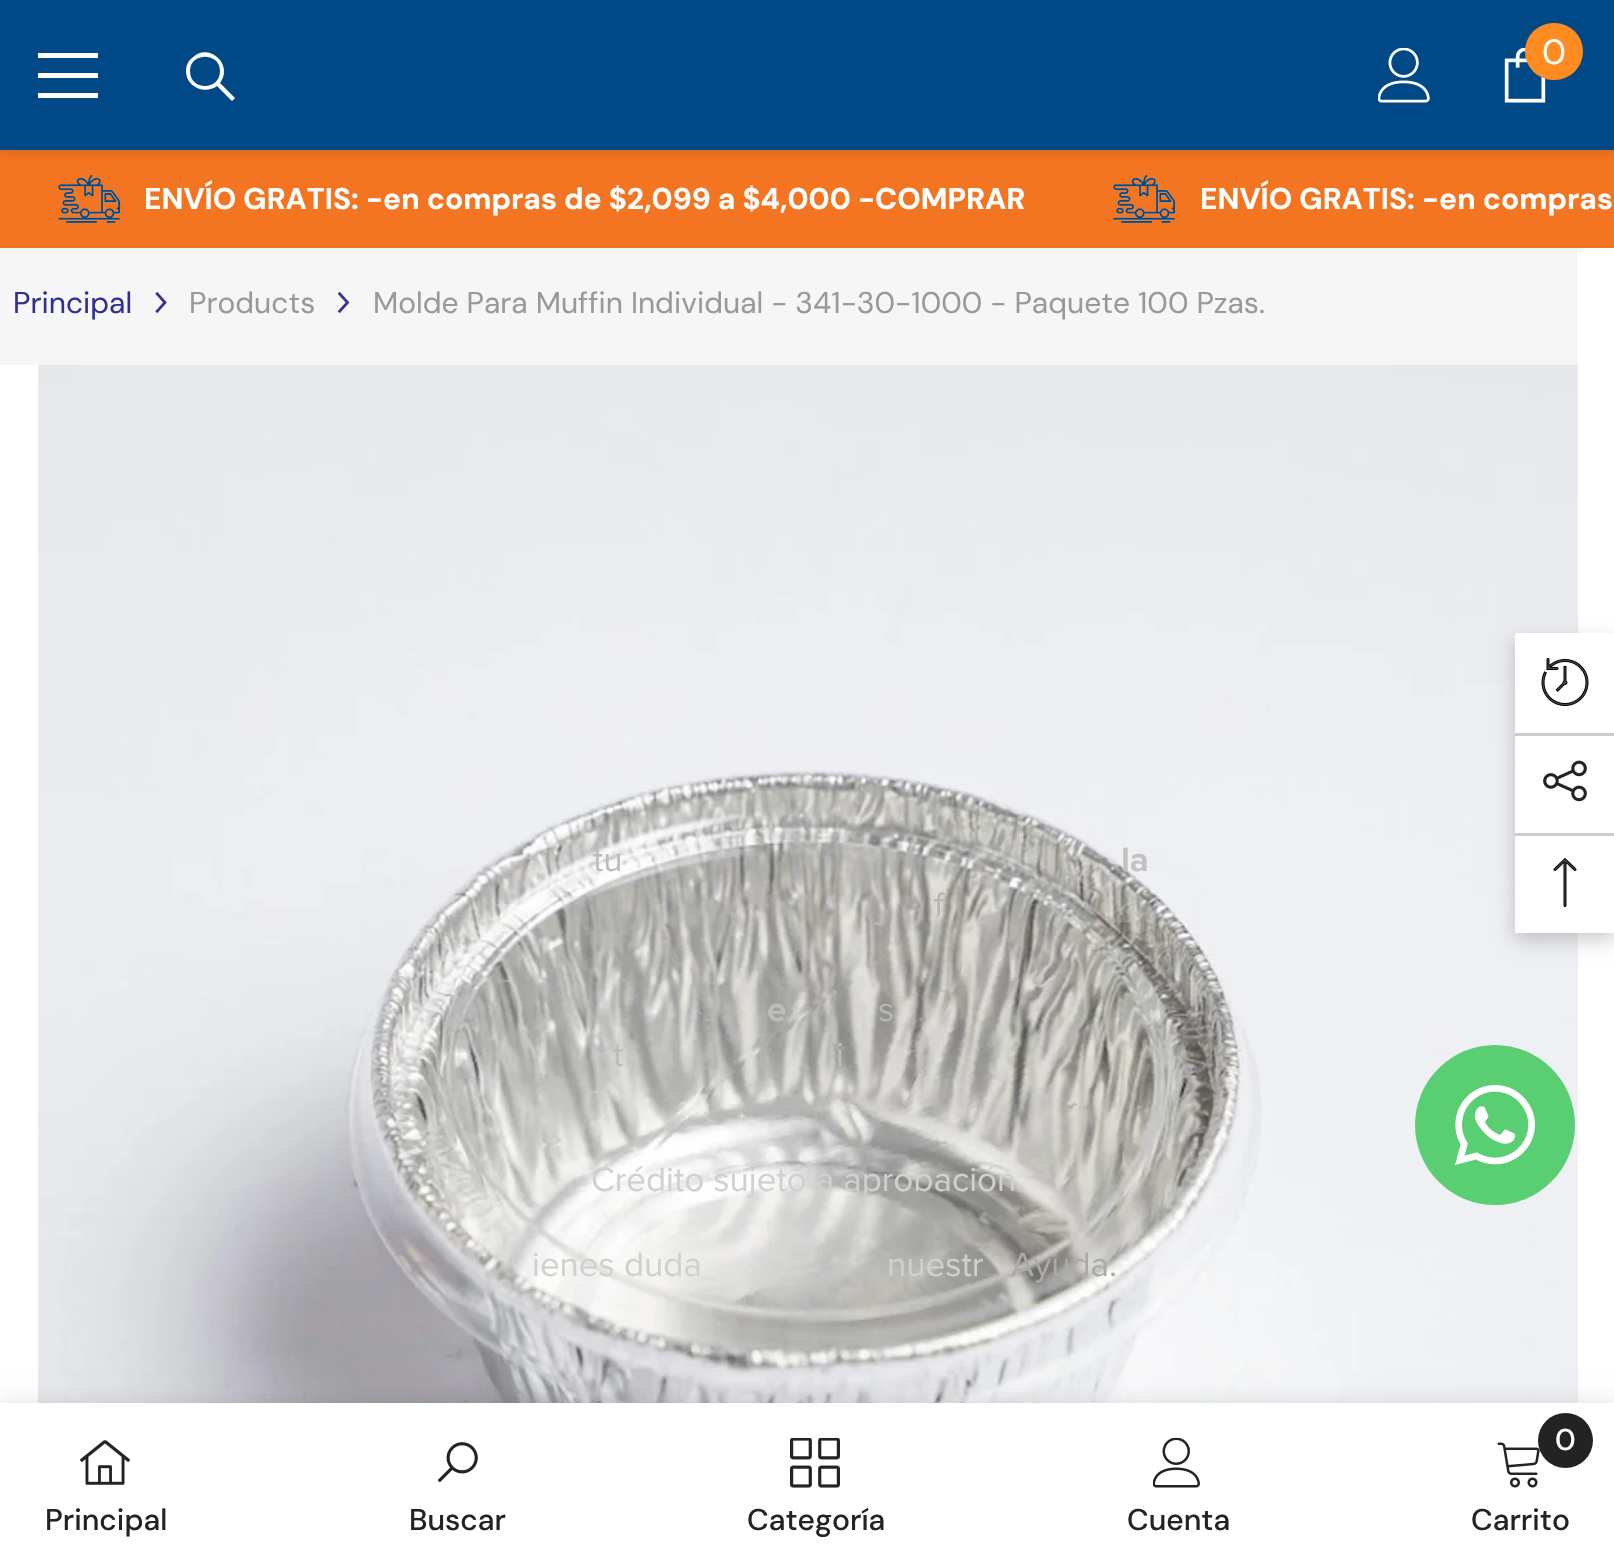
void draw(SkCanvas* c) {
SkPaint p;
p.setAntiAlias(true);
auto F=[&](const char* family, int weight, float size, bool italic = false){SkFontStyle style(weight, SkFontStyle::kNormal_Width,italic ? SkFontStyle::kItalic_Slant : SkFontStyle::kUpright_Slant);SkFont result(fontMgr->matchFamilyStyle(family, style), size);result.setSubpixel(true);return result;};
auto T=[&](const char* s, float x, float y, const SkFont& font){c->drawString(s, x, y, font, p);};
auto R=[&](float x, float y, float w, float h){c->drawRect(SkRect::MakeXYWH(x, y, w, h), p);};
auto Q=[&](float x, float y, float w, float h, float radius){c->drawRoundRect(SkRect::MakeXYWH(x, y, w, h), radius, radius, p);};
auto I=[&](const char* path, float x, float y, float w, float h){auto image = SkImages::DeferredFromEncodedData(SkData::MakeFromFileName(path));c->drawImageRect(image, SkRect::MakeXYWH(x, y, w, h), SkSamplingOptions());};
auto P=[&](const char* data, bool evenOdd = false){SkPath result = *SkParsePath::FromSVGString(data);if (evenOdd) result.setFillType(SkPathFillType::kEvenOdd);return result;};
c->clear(0xffffffff);
p.setColor(0xfff37421);
R(0,150,1614,98);
p.setColor(0x1a000000);
p.setMaskFilter(SkMaskFilter::MakeBlur(kNormal_SkBlurStyle, 4));
c->drawRect(SkRect::MakeXYWH(0,3,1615,150),p);
p.setMaskFilter(nullptr);
p.setColor(0xff004886);
R(0,0,1614,150);
p.setColor(0xffffffff);
R(38,73,60,5);
R(38,53,60,5);
R(38,93,60,5);
c->drawPath(P("M186 71c0 16 19 24 31 15l15 15l3-3l-15-15c14-18-11-42-28-25c-4 3-6 8-6 13zm4 0c0-19 30-19 30 0c0 20-30 20-30 0z"),p);
I("1.png",1378,48,52,55);
I("2.png",1504,48,42,55);
p.setColor(0xffff8b21);
Q(1525,23,58,57,28.5);
auto f1 = F("DM Sans",400,35);
p.setColor(0xffffffff);
T("0",1542,64,f1);
I("3.png",58,174,62,49);
auto f2 = F("DM Sans",700,30);
T("ENVÍO GRATIS: -en compras de $2,099 a $4,000 -",144,209,f2);
auto f3 = F("DM Sans",800,30);
T("COMPRAR",875,209,f3);
I("3.png",1113,174,62,49);
T("ENVÍO GRATIS: -en compras",1200,209,f2);
p.setColor(0xfff6f6f6);
R(0,248,1578,117);
auto f4 = F("DM Sans",400,30);
p.setColor(0xff313092);
T("Principal",13,313,f4);
I("4.png",155,292,12,21);
p.setColor(0xff999999);
T("Products",189,313,f4);
I("5.png",337,292,13,21);
T("Molde Para Muffin Individual - 341-30-1000 - Paquete 100 Pzas.",373,313,f4);
I("6.png",38,365,1540,1038);
p.setColor(0x1f000000);
p.setMaskFilter(SkMaskFilter::MakeBlur(kNormal_SkBlurStyle, 11));
c->drawRect(SkRect::MakeXYWH(0,1403,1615,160),p);
p.setMaskFilter(nullptr);
p.setColor(0xffffffff);
R(0,1403,1614,159);
I("7.png",80,1440,50,45);
auto f5 = F("DM Sans",500,30);
p.setColor(0xff232323);
T("Principal",45,1530,f5);
I("8.png",437,1442,41,41);
T("Buscar",409,1530,f5);
I("9.png",790,1438,50,50);
T("Categoría",747,1530,f5);
I("10.png",1153,1438,47,50);
T("Cuenta",1127,1530,f5);
I("11.png",1497,1442,43,46);
c->drawCircle(1565.5,1440.5,27.5,p);
p.setColor(0xffffffff);
T("0",1555,1450,f5);
p.setColor(0xff232323);
T("Carrito",1471,1530,f5);
p.setColor(0x33000000);
p.setMaskFilter(SkMaskFilter::MakeBlur(kNormal_SkBlurStyle, 9));
c->drawRect(SkRect::MakeXYWH(1515,640,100,300),p);
p.setMaskFilter(nullptr);
p.setColor(0xffffffff);
R(1515,633,99,300);
I("12.png",1541,658,48,48);
p.setColor(0xffcccccc);
R(1515,733,99,3);
I("13.png",1543,760,44,42);
R(1515,833,99,3);
I("14.png",1553,858,24,49);
auto f6 = F("Proxima Nova",400,35);
p.setColor(0xffbcbcb9);
T("tu",593,871,f6);
auto f7 = F("Proxima Nova",700,35);
p.setColor(0xffc3c2c0);
T("la",1121,871,f7);
p.setColor(0xffb8b6b1);
T("f",934,916,f6);
p.setColor(0xffbcbcb9);
T("e",767,1021,f7);
p.setColor(0xffb8b6b1);
T("s",878,1021,f6);
p.setColor(0xffbcbcb9);
T("t",613,1066,f6);
T("i",836,1066,f6);
p.setColor(0xffd0d0cf);
T("Crédito sujeto a aprobación",591,1191,f6);
T("ienes duda",532,1276,f6);
T("nuestr",887,1276,f6);
p.setColor(0xffabaaa6);
T("Ayuda.",1011,1276,f6);
p.setColor(0xff59ce72);
c->drawCircle(1495,1125,80,p);
I("15.png",1455,1085,80,80);
}
